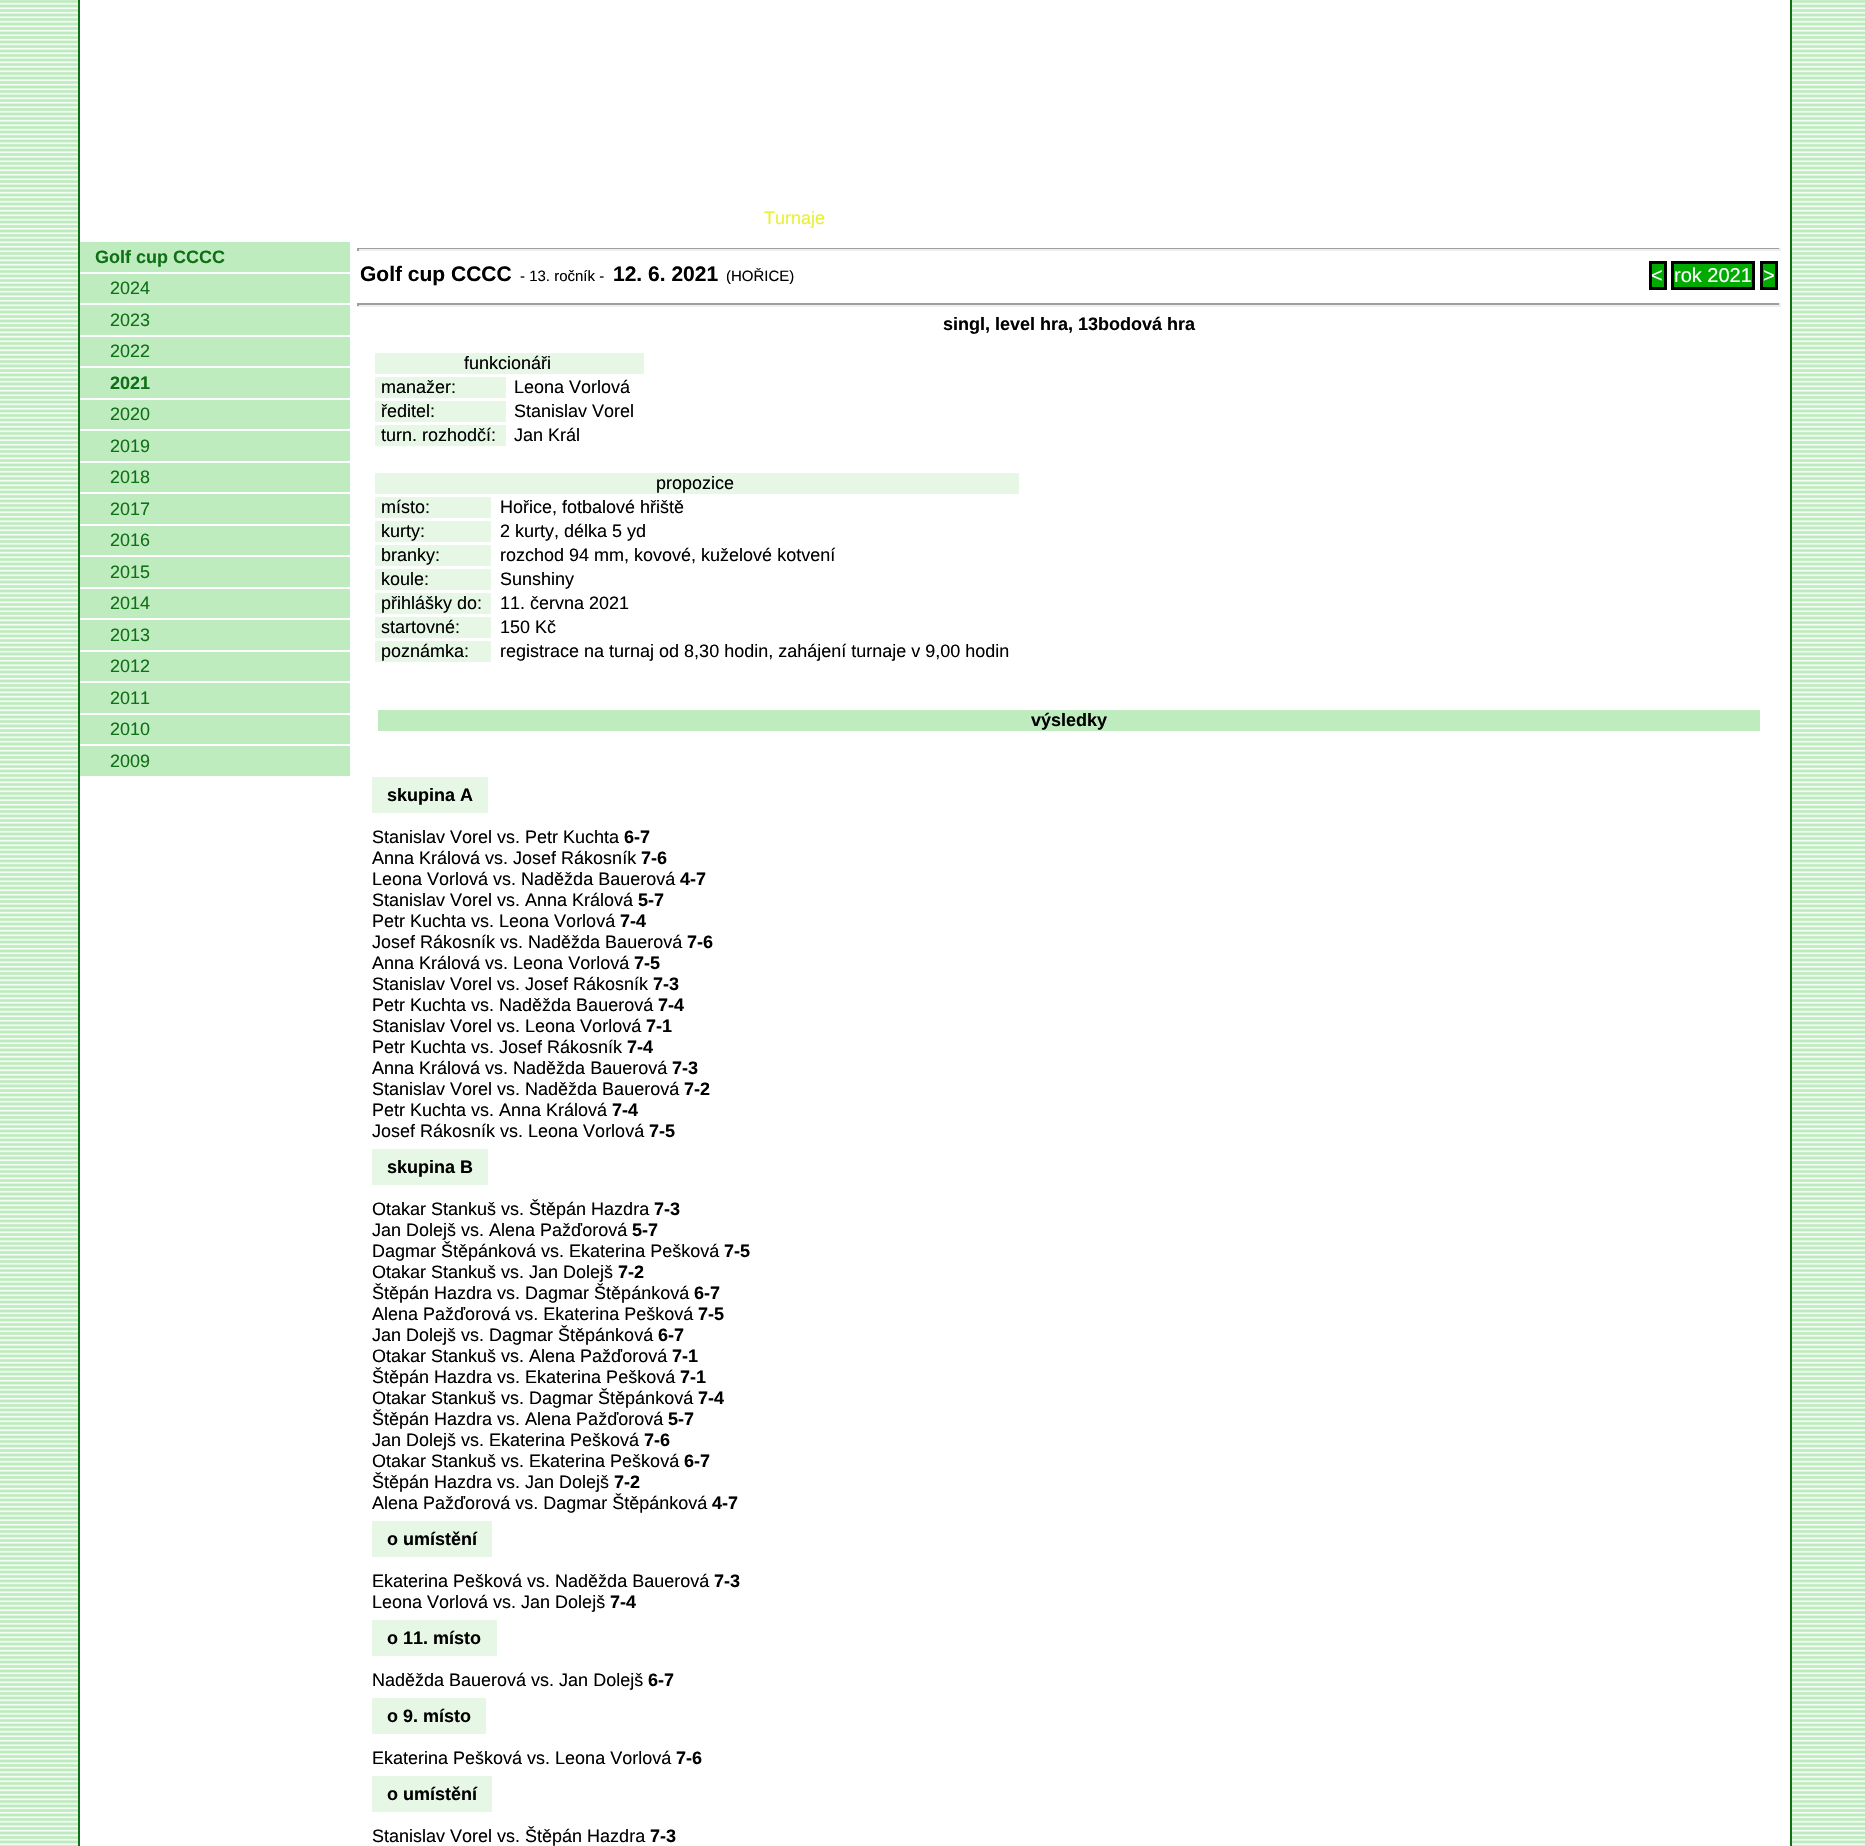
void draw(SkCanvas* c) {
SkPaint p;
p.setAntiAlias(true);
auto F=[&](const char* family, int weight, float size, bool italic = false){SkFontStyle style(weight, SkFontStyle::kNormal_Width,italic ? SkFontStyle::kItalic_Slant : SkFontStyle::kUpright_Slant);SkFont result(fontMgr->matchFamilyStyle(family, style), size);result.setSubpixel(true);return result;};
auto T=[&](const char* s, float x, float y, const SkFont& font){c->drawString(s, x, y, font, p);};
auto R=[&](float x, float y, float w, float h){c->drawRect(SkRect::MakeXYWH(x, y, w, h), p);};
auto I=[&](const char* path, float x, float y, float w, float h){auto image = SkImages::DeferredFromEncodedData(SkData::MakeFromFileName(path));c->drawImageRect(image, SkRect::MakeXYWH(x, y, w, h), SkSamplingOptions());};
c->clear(0xffffffff);
I("1.png",0,0,1865,1846);
p.setColor(0xffffffff);
R(80,0,1710,1846);
p.setColor(0xff107017);
R(1790,0,2,1846);
R(78,0,2,1846);
auto f1 = F("Liberation Sans",400,18);
p.setColor(0xffeaf038);
T("Turnaje",764,224,f1);
p.setColor(0xffbeecbe);
R(80,242,270,30);
auto f2 = F("Liberation Sans",700,18);
p.setColor(0xff107017);
T("Golf cup CCCC",95,263,f2);
p.setColor(0xffbeecbe);
R(80,274,270,29);
p.setColor(0xff107017);
T("2024",110,294,f1);
p.setColor(0xffbeecbe);
R(80,305,270,30);
p.setColor(0xff107017);
T("2023",110,326,f1);
p.setColor(0xffbeecbe);
R(80,337,270,29);
p.setColor(0xff107017);
T("2022",110,357,f1);
p.setColor(0xffbeecbe);
R(80,368,270,30);
p.setColor(0xff107017);
T("2021",110,389,f2);
p.setColor(0xffbeecbe);
R(80,400,270,29);
p.setColor(0xff107017);
T("2020",110,420,f1);
p.setColor(0xffbeecbe);
R(80,431,270,30);
p.setColor(0xff107017);
T("2019",110,452,f1);
p.setColor(0xffbeecbe);
R(80,463,270,29);
p.setColor(0xff107017);
T("2018",110,483,f1);
p.setColor(0xffbeecbe);
R(80,494,270,30);
p.setColor(0xff107017);
T("2017",110,515,f1);
p.setColor(0xffbeecbe);
R(80,526,270,29);
p.setColor(0xff107017);
T("2016",110,546,f1);
p.setColor(0xffbeecbe);
R(80,557,270,30);
p.setColor(0xff107017);
T("2015",110,578,f1);
p.setColor(0xffbeecbe);
R(80,589,270,29);
p.setColor(0xff107017);
T("2014",110,609,f1);
p.setColor(0xffbeecbe);
R(80,620,270,30);
p.setColor(0xff107017);
T("2013",110,641,f1);
p.setColor(0xffbeecbe);
R(80,652,270,29);
p.setColor(0xff107017);
T("2012",110,672,f1);
p.setColor(0xffbeecbe);
R(80,683,270,30);
p.setColor(0xff107017);
T("2011",110,704,f1);
p.setColor(0xffbeecbe);
R(80,715,270,29);
p.setColor(0xff107017);
T("2010",110,735,f1);
p.setColor(0xffbeecbe);
R(80,746,270,30);
p.setColor(0xff107017);
T("2009",110,767,f1);
p.setColor(0xff9f9f9f);
R(357,248,1424,1);
p.setColor(0xffeeeeee);
R(1779,248,2,3);
R(357,249,1424,2);
p.setColor(0xff9f9f9f);
R(357,248,2,3);
auto f3 = F("Liberation Sans",700,21);
p.setColor(0xff000000);
T("Golf cup CCCC",360,281,f3);
auto f4 = F("Liberation Sans",400,15);
T("- 13. ročník -",520,281,f4);
T("12. 6. 2021",613,281,f3);
T("(HOŘICE)",726,281,f4);
p.setColor(0xff00aa00);
c->drawRect(SkRect::MakeXYWH(1650.5,262.5,15,26),p);
p.setStroke(true);
p.setStrokeWidth(3);
p.setColor(0xff000000);
c->drawRect(SkRect::MakeXYWH(1650.5,262.5,15,26),p);
auto f5 = F("Liberation Sans",400,20);
p.setStroke(false);
p.setColor(0xffffffff);
T("<",1651,282,f5);
p.setColor(0xff00aa00);
c->drawRect(SkRect::MakeXYWH(1672.5,262.5,81,26),p);
p.setStroke(true);
p.setColor(0xff000000);
c->drawRect(SkRect::MakeXYWH(1672.5,262.5,81,26),p);
p.setStroke(false);
p.setColor(0xffffffff);
T("rok 2021",1674,282,f5);
p.setColor(0xff00aa00);
c->drawRect(SkRect::MakeXYWH(1761.5,262.5,15,26),p);
p.setStroke(true);
p.setColor(0xff000000);
c->drawRect(SkRect::MakeXYWH(1761.5,262.5,15,26),p);
p.setStroke(false);
p.setColor(0xffffffff);
T(">",1763,282,f5);
p.setColor(0xff9f9f9f);
R(357,303,1424,2);
p.setColor(0xffeeeeee);
R(1779,303,2,3);
R(357,305,1424,2);
p.setColor(0xff9f9f9f);
R(357,303,2,3);
p.setColor(0xff000000);
T("singl, level hra, 13bodová hra",943,330,f2);
p.setColor(0xffe6f7e5);
R(375,353,269,21);
p.setColor(0xff000000);
T("funkcionáři",464,369,f1);
p.setColor(0xffe6f7e5);
R(375,377,131,21);
p.setColor(0xff000000);
T("manažer:",381,393,f1);
T("Leona Vorlová",514,393,f1);
p.setColor(0xffe6f7e5);
R(375,401,131,21);
p.setColor(0xff000000);
T("ředitel:",381,417,f1);
T("Stanislav Vorel",514,417,f1);
p.setColor(0xffe6f7e5);
R(375,425,131,21);
p.setColor(0xff000000);
T("turn. rozhodčí:",381,441,f1);
T("Jan Král",514,441,f1);
p.setColor(0xffe6f7e5);
R(375,473,644,21);
p.setColor(0xff000000);
T("propozice",656,489,f1);
p.setColor(0xffe6f7e5);
R(375,497,116,21);
p.setColor(0xff000000);
T("místo:",381,513,f1);
T("Hořice, fotbalové hřiště",500,513,f1);
p.setColor(0xffe6f7e5);
R(375,521,116,21);
p.setColor(0xff000000);
T("kurty:",381,537,f1);
T("2 kurty, délka 5 yd",500,537,f1);
p.setColor(0xffe6f7e5);
R(375,545,116,21);
p.setColor(0xff000000);
T("branky:",381,561,f1);
T("rozchod 94 mm, kovové, kuželové kotvení",500,561,f1);
p.setColor(0xffe6f7e5);
R(375,569,116,21);
p.setColor(0xff000000);
T("koule:",381,585,f1);
T("Sunshiny",500,585,f1);
p.setColor(0xffe6f7e5);
R(375,593,116,21);
p.setColor(0xff000000);
T("přihlášky do:",381,609,f1);
T("11. června 2021",500,609,f1);
p.setColor(0xffe6f7e5);
R(375,617,116,21);
p.setColor(0xff000000);
T("startovné:",381,633,f1);
T("150 Kč",500,633,f1);
p.setColor(0xffe6f7e5);
R(375,641,116,21);
p.setColor(0xff000000);
T("poznámka:",381,657,f1);
T("registrace na turnaj od 8,30 hodin, zahájení turnaje v 9,00 hodin",500,657,f1);
p.setColor(0xffbeecbe);
R(378,710,1382,21);
p.setColor(0xff000000);
T("výsledky",1031,726,f2);
p.setColor(0xffe6f7e5);
R(372,777,116,36);
p.setColor(0xff000000);
T("skupina A",387,801,f2);
T("Stanislav Vorel vs. Petr Kuchta",372,843,f1);
T("6-7",624,843,f2);
T("Anna Králová vs. Josef Rákosník",372,864,f1);
T("7-6",641,864,f2);
T("Leona Vorlová vs. Naděžda Bauerová",372,885,f1);
T("4-7",680,885,f2);
T("Stanislav Vorel vs. Anna Králová",372,906,f1);
T("5-7",638,906,f2);
T("Petr Kuchta vs. Leona Vorlová",372,927,f1);
T("7-4",620,927,f2);
T("Josef Rákosník vs. Naděžda Bauerová",372,948,f1);
T("7-6",687,948,f2);
T("Anna Králová vs. Leona Vorlová",372,969,f1);
T("7-5",634,969,f2);
T("Stanislav Vorel vs. Josef Rákosník",372,990,f1);
T("7-3",653,990,f2);
T("Petr Kuchta vs. Naděžda Bauerová",372,1011,f1);
T("7-4",658,1011,f2);
T("Stanislav Vorel vs. Leona Vorlová",372,1032,f1);
T("7-1",646,1032,f2);
T("Petr Kuchta vs. Josef Rákosník",372,1053,f1);
T("7-4",627,1053,f2);
T("Anna Králová vs. Naděžda Bauerová",372,1074,f1);
T("7-3",672,1074,f2);
T("Stanislav Vorel vs. Naděžda Bauerová",372,1095,f1);
T("7-2",684,1095,f2);
T("Petr Kuchta vs. Anna Králová",372,1116,f1);
T("7-4",612,1116,f2);
T("Josef Rákosník vs. Leona Vorlová",372,1137,f1);
T("7-5",649,1137,f2);
p.setColor(0xffe6f7e5);
R(372,1149,116,36);
p.setColor(0xff000000);
T("skupina B",387,1173,f2);
T("Otakar Stankuš vs. Štěpán Hazdra",372,1215,f1);
T("7-3",654,1215,f2);
T("Jan Dolejš vs. Alena Pažďorová",372,1236,f1);
T("5-7",632,1236,f2);
T("Dagmar Štěpánková vs. Ekaterina Pešková",372,1257,f1);
T("7-5",724,1257,f2);
T("Otakar Stankuš vs. Jan Dolejš",372,1278,f1);
T("7-2",618,1278,f2);
T("Štěpán Hazdra vs. Dagmar Štěpánková",372,1299,f1);
T("6-7",694,1299,f2);
T("Alena Pažďorová vs. Ekaterina Pešková",372,1320,f1);
T("7-5",698,1320,f2);
T("Jan Dolejš vs. Dagmar Štěpánková",372,1341,f1);
T("6-7",658,1341,f2);
T("Otakar Stankuš vs. Alena Pažďorová",372,1362,f1);
T("7-1",672,1362,f2);
T("Štěpán Hazdra vs. Ekaterina Pešková",372,1383,f1);
T("7-1",680,1383,f2);
T("Otakar Stankuš vs. Dagmar Štěpánková",372,1404,f1);
T("7-4",698,1404,f2);
T("Štěpán Hazdra vs. Alena Pažďorová",372,1425,f1);
T("5-7",668,1425,f2);
T("Jan Dolejš vs. Ekaterina Pešková",372,1446,f1);
T("7-6",644,1446,f2);
T("Otakar Stankuš vs. Ekaterina Pešková",372,1467,f1);
T("6-7",684,1467,f2);
T("Štěpán Hazdra vs. Jan Dolejš",372,1488,f1);
T("7-2",614,1488,f2);
T("Alena Pažďorová vs. Dagmar Štěpánková",372,1509,f1);
T("4-7",712,1509,f2);
p.setColor(0xffe6f7e5);
R(372,1521,120,36);
p.setColor(0xff000000);
T("o umístění",387,1545,f2);
T("Ekaterina Pešková vs. Naděžda Bauerová",372,1587,f1);
T("7-3",714,1587,f2);
T("Leona Vorlová vs. Jan Dolejš",372,1608,f1);
T("7-4",610,1608,f2);
p.setColor(0xffe6f7e5);
R(372,1620,125,36);
p.setColor(0xff000000);
T("o 11. místo",387,1644,f2);
T("Naděžda Bauerová vs. Jan Dolejš",372,1686,f1);
T("6-7",648,1686,f2);
p.setColor(0xffe6f7e5);
R(372,1698,114,36);
p.setColor(0xff000000);
T("o 9. místo",387,1722,f2);
T("Ekaterina Pešková vs. Leona Vorlová",372,1764,f1);
T("7-6",676,1764,f2);
p.setColor(0xffe6f7e5);
R(372,1776,120,36);
p.setColor(0xff000000);
T("o umístění",387,1800,f2);
T("Stanislav Vorel vs. Štěpán Hazdra",372,1842,f1);
T("7-3",650,1842,f2);
}
